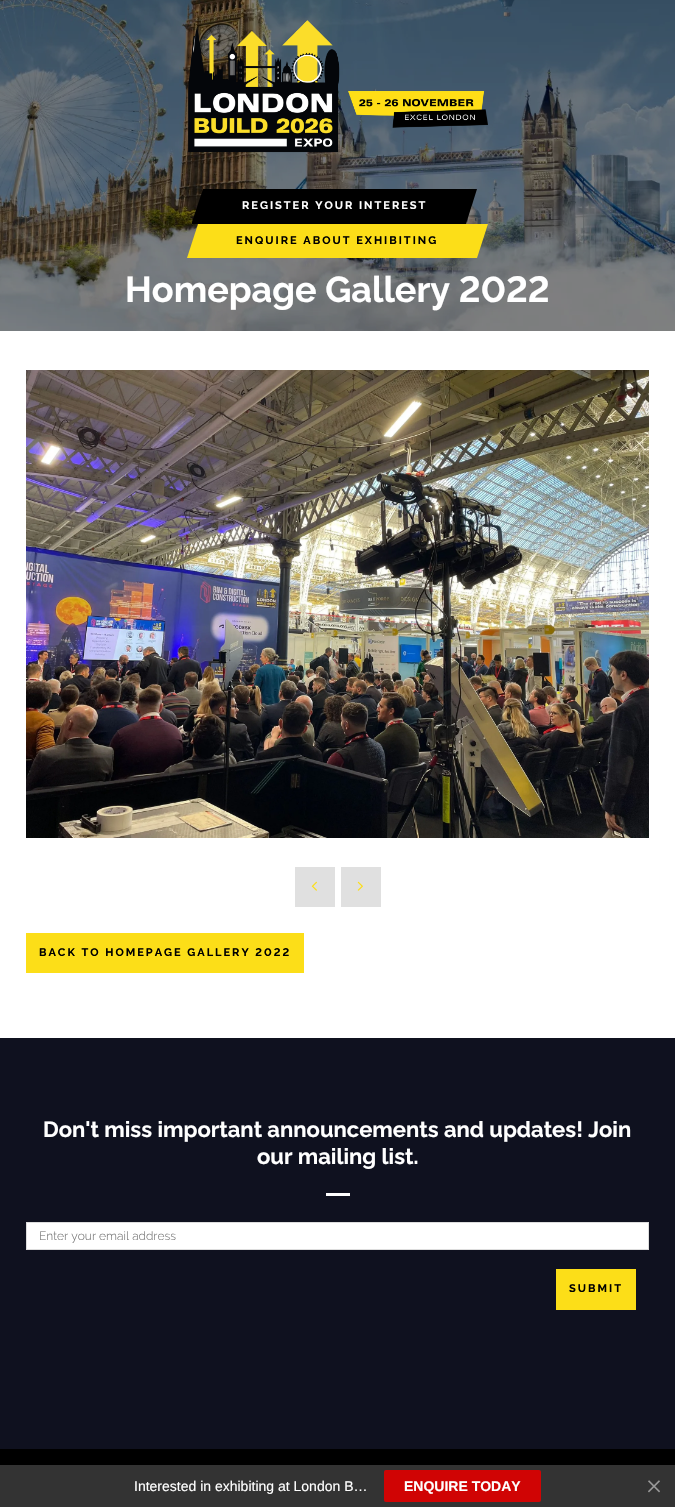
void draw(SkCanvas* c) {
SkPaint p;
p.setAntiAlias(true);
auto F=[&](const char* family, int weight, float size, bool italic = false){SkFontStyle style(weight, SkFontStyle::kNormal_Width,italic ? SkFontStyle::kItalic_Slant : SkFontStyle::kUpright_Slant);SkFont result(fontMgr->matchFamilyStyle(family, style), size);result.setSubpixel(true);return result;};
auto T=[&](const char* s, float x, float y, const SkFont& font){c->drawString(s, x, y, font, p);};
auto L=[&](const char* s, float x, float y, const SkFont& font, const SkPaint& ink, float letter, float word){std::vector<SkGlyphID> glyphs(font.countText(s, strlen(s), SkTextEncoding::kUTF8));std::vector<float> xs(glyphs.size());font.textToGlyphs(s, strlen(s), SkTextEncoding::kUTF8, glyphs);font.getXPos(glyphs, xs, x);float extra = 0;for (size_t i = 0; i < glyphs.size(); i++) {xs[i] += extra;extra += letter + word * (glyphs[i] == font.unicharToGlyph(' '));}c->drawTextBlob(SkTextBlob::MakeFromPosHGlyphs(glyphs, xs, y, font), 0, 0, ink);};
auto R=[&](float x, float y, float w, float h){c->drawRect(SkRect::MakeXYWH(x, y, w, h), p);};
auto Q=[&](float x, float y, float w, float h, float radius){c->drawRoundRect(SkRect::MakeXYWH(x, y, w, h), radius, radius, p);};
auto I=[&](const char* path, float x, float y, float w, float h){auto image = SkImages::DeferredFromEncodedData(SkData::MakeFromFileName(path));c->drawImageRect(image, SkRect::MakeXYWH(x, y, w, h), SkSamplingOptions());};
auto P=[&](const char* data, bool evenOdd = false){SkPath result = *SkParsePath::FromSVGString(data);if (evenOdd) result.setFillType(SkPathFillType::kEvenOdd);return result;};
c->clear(0xffffffff);
I("1.png",0,0,675,331);
I("2.png",188,20,300,133);
p.setColor(0xff000000);
c->drawPath(P("M203 189h274l-11 35h-274v-2z"),p);
auto f1 = F("Raleway",700,11);
p.setColor(0xffffffff);
L("REGISTER YOUR INTEREST",242,209,f1,p,2,0);
p.setColor(0xfffcde18);
c->drawPath(P("M187 258l11-34h290l-11 34z"),p);
p.setColor(0xff000000);
L("ENQUIRE ABOUT EXHIBITING",236,244,f1,p,2,0);
auto f2 = F("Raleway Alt",700,36);
p.setColor(0xffffffff);
T("Homepage Gallery 2022",125,302,f2);
I("3.png",26,370,623,468);
p.setColor(0xffe0e0e0);
R(295,867,40,40);
I("4.png",311,881,6,10);
R(341,867,40,40);
I("5.png",357,881,6,10);
p.setColor(0xfffcde18);
R(26,933,278,40);
auto f3 = F("Raleway Alt",700,11);
p.setColor(0xff000000);
L("BACK TO HOMEPAGE GALLERY 2022",39,956,f3,p,2,0);
p.setColor(0xff0f111f);
R(0,1038,675,411);
auto f4 = F("Raleway",700,22);
p.setColor(0xffffffff);
T("Don't miss important announcements and updates! Join",43,1137,f4);
T("our mailing list.",257,1164,f4);
R(326,1193,24,3);
c->drawRect(SkRect::MakeXYWH(26.5,1222.5,622,27),p);
p.setStroke(true);
p.setStrokeWidth(1);
p.setColor(0xffdddddd);
c->drawRect(SkRect::MakeXYWH(26.5,1222.5,622,27),p);
auto f5 = F("Raleway",300,12);
p.setStroke(false);
p.setColor(0xff757575);
T("Enter your email address",39,1240,f5);
p.setColor(0xfffcde18);
R(556,1269,80,41);
p.setColor(0xff000000);
L("SUBMIT",569,1292,f1,p,2,0);
R(0,1449,675,16);
p.setColor(0xff333333);
R(0,1465,675,42);
auto f6 = F("Liberation Sans",400,14);
p.setColor(0xffffffff);
T("Interested in exhibiting at London B…",134,1491,f6);
p.setColor(0xffd00404);
Q(384,1470,157,32,2);
auto f7 = F("Liberation Sans",700,14);
p.setColor(0xffffffff);
T("ENQUIRE TODAY",404,1491,f7);
I("6.png",648,1480,12,13);
}
